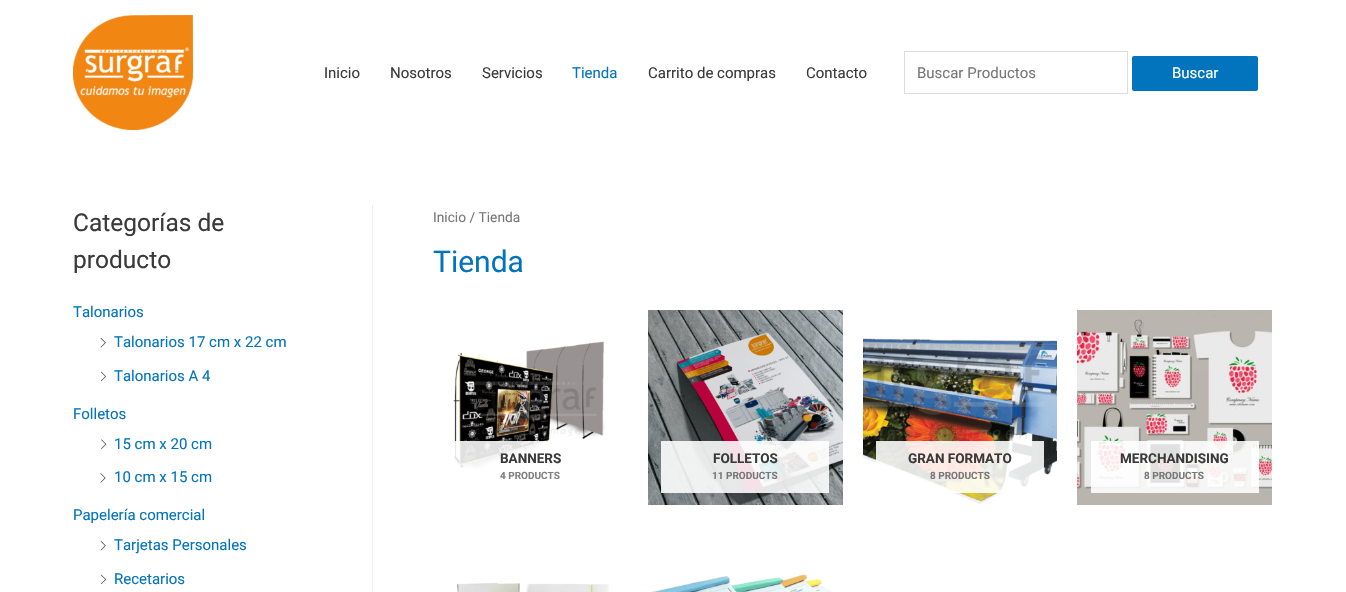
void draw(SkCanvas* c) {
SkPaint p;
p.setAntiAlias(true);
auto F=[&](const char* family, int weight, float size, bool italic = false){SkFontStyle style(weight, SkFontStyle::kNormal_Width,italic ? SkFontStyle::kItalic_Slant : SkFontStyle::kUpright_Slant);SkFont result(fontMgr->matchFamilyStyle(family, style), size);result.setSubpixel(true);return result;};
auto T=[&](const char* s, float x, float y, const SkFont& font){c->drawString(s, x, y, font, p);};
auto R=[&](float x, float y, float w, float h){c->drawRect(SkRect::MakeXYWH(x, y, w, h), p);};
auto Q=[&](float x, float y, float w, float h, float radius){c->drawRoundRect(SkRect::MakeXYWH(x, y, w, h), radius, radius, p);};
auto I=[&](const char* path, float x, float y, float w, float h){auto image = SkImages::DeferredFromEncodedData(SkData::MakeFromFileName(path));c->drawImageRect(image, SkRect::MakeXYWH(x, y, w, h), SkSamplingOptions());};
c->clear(0xffffffff);
I("1.png",73,15,120,115);
auto f1 = F("Roboto",400,15);
p.setColor(0xff3a3a3a);
T("Inicio",324,78,f1);
T("Nosotros",390,78,f1);
T("Servicios",482,78,f1);
p.setColor(0xff0274be);
T("Tienda",572,78,f1);
p.setColor(0xff3a3a3a);
T("Carrito de compras",648,78,f1);
T("Contacto",806,78,f1);
p.setStroke(true);
p.setStrokeWidth(1);
p.setColor(0xffdddddd);
c->drawRect(SkRect::MakeXYWH(904.5,51.5,223,42),p);
p.setStroke(false);
p.setColor(0xff777777);
T("Buscar Productos",917,78,f1);
p.setColor(0xff0274be);
Q(1132,56,126,35,2);
p.setColor(0xffffffff);
T("Buscar",1172,78,f1);
p.setColor(0xffeeeeee);
R(372,205,1,387);
auto f2 = F("Roboto",400,24.5);
p.setColor(0xff3a3a3a);
T("Categorías de",73,231,f2);
T("producto",73,268,f2);
p.setColor(0xff0274be);
T("Talonarios",73,317,f1);
I("2.png",100,338,6,10);
T("Talonarios 17 cm x 22 cm",114,347,f1);
I("3.png",100,371,6,11);
T("Talonarios A 4",114,381,f1);
T("Folletos",73,419,f1);
I("4.png",101,439,6,10);
T("15 cm x 20 cm",114,449,f1);
I("5.png",100,473,6,10);
T("10 cm x 15 cm",114,482,f1);
T("Papelería comercial",73,520,f1);
I("2.png",100,541,6,10);
T("Tarjetas Personales",114,550,f1);
I("3.png",100,574,6,11);
T("Recetarios",114,584,f1);
auto f3 = F("Roboto",400,13.75);
p.setColor(0xff777777);
T("Inicio / Tienda",433,222,f3);
auto f4 = F("Roboto",400,30);
p.setColor(0xff0274be);
T("Tienda",433,272,f4);
I("6.png",453,341,152,130);
p.setColor(0xe0ffffff);
R(454,441,96,30);
auto f5 = F("Roboto",700,13.5);
p.setColor(0xff3a3a3a);
T("BANNERS",500,463,f5);
auto f6 = F("Roboto",700,10);
p.setColor(0xff808080);
T("4 PRODUCTS",500,479,f6);
I("7.png",648,310,195,195);
p.setColor(0xe0ffffff);
R(661,441,168,52);
p.setColor(0xff3a3a3a);
T("FOLLETOS",713,463,f5);
p.setColor(0xff777777);
T("11 PRODUCTS",712,479,f6);
I("8.png",863,338,194,167);
p.setColor(0xe0ffffff);
R(876,441,168,52);
p.setColor(0xff3a3a3a);
T("GRAN FORMATO",908,463,f5);
p.setColor(0xff777777);
T("8 PRODUCTS",930,479,f6);
I("9.png",1077,310,195,195);
p.setColor(0xe0ffffff);
R(1091,441,168,52);
p.setColor(0xff3a3a3a);
T("MERCHANDISING",1120,463,f5);
p.setColor(0xff777777);
T("8 PRODUCTS",1144,479,f6);
I("10.png",457,583,152,9);
I("11.png",651,574,181,18);
}
